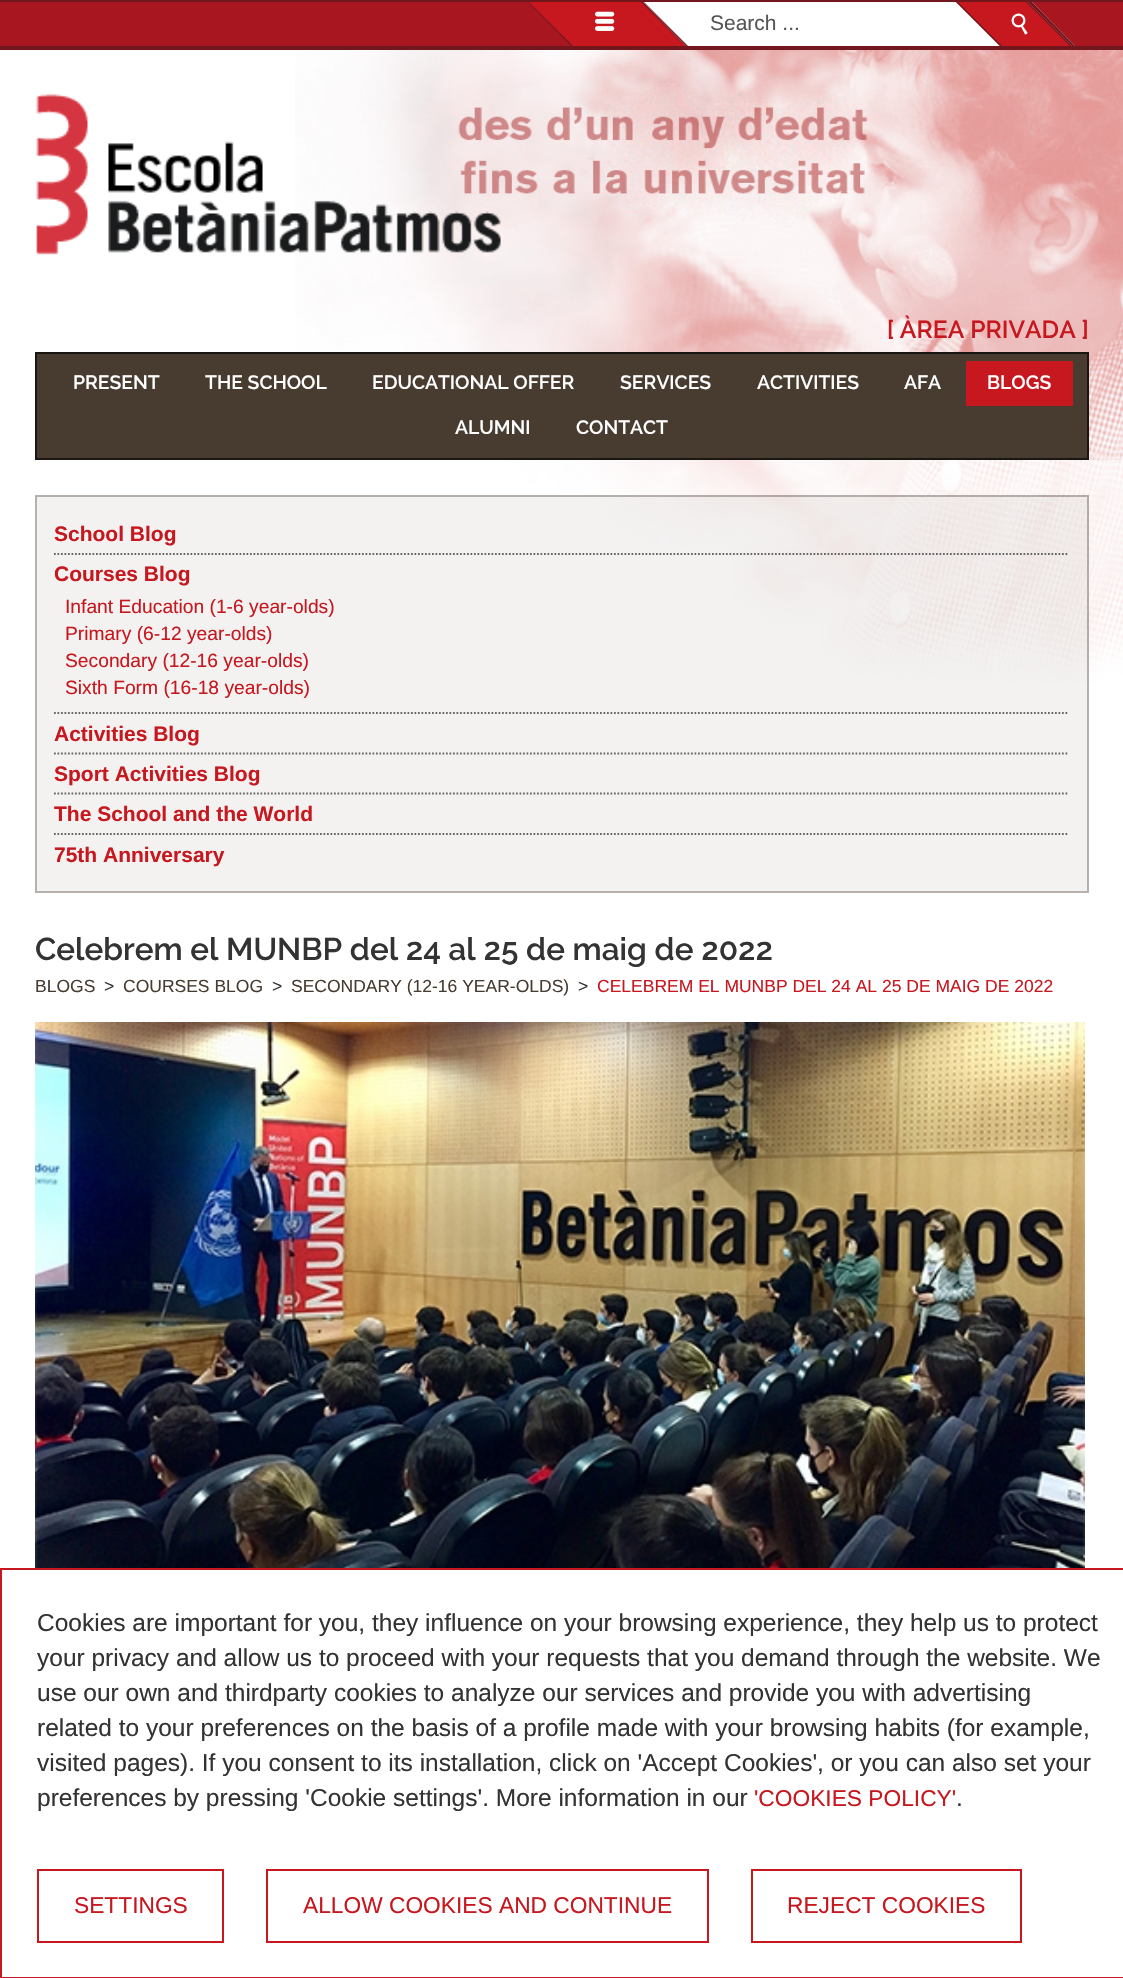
void draw(SkCanvas* c) {
SkPaint p;
p.setAntiAlias(true);
auto F=[&](const char* family, int weight, float size, bool italic = false){SkFontStyle style(weight, SkFontStyle::kNormal_Width,italic ? SkFontStyle::kItalic_Slant : SkFontStyle::kUpright_Slant);SkFont result(fontMgr->matchFamilyStyle(family, style), size);result.setSubpixel(true);return result;};
auto T=[&](const char* s, float x, float y, const SkFont& font){c->drawString(s, x, y, font, p);};
auto R=[&](float x, float y, float w, float h){c->drawRect(SkRect::MakeXYWH(x, y, w, h), p);};
auto I=[&](const char* path, float x, float y, float w, float h){auto image = SkImages::DeferredFromEncodedData(SkData::MakeFromFileName(path));c->drawImageRect(image, SkRect::MakeXYWH(x, y, w, h), SkSamplingOptions());};
auto P=[&](const char* data, bool evenOdd = false){SkPath result = *SkParsePath::FromSVGString(data);if (evenOdd) result.setFillType(SkPathFillType::kEvenOdd);return result;};
c->clear(0xffffffff);
p.setColor(0xffa8171f);
R(0,2,1123,44);
p.setColor(0xff73171f);
R(0,0,1123,2);
R(0,46,1123,4);
p.setColor(0xffc7171f);
c->drawPath(P("M528 2h115l43 44h-115z"),p);
p.setColor(0xff73171f);
c->drawPath(P("M641 2h2l43 44h-1z"),p);
c->drawPath(P("M528 2h1l44 44h-2z"),p);
I("1.png",595,11,20,20);
p.setColor(0xffffffff);
c->drawPath(P("M643 2h389l43 44h-389z"),p);
p.setColor(0xff73171f);
c->drawPath(P("M1028 2h4l43 44h-3z"),p);
c->drawPath(P("M643 2h1l44 44h-2z"),p);
auto f1 = F("Liberation Sans",400,21);
p.setColor(0xff555555);
T("Search ...",710,30,f1);
p.setColor(0xffc7171f);
c->drawPath(P("M956 2h72l44 44h-72z"),p);
p.setColor(0xff73171f);
c->drawPath(P("M1026 2h2l44 44h-2z"),p);
c->drawPath(P("M956 2h2l44 44h-2z"),p);
I("2.png",1011,13,17,22);
I("4.png",295,50,828,633);
I("3.png",36,94,465,161);
auto f2 = F("Raleway",600,24.5);
p.setColor(0xffc7171f);
T("[ ÀREA PRIVADA ]",887,338,f2);
p.setColor(0xff483c31);
c->drawRect(SkRect::MakeXYWH(36,353,1052,106),p);
p.setStroke(true);
p.setStrokeWidth(2);
p.setColor(0xff1a1612);
c->drawRect(SkRect::MakeXYWH(36,353,1052,106),p);
auto f3 = F("Raleway",600,19.25);
p.setStroke(false);
p.setColor(0xffffffff);
T("PRESENT",73,389,f3);
T("THE SCHOOL",205,389,f3);
T("EDUCATIONAL OFFER",372,389,f3);
T("SERVICES",620,389,f3);
T("ACTIVITIES",757,389,f3);
T("AFA",904,389,f3);
p.setColor(0xffc7171f);
R(966,361,107,45);
p.setColor(0xffffffff);
T("BLOGS",987,389,f3);
T("ALUMNI",455,434,f3);
T("CONTACT",576,434,f3);
p.setColor(0xa6ffffff);
R(538,460,585,223);
p.setColor(0x33c5beba);
R(37,497,1050,394);
p.setStroke(true);
p.setColor(0x66483c31);
c->drawRect(SkRect::MakeXYWH(36,496,1052,396),p);
p.setStrokeWidth(1.8);
p.setColor(0xff666666);
p.setPathEffect(SkDashPathEffect::Make({{1.75f,1.75f}}, 0));
c->drawPath(P("M54 554h1015"),p);
p.setPathEffect(nullptr);
auto f4 = F("Liberation Sans",700,21);
p.setStroke(false);
p.setColor(0xffc7171f);
T("School Blog",54,541,f4);
p.setStroke(true);
p.setColor(0xff666666);
p.setPathEffect(SkDashPathEffect::Make({{1.75f,1.75f}}, 0));
c->drawPath(P("M54 713h1015"),p);
p.setPathEffect(nullptr);
p.setStroke(false);
p.setColor(0xffc7171f);
T("Courses Blog",54,581,f4);
auto f5 = F("Liberation Sans",400,19.25);
T("Infant Education (1-6 year-olds)",65,613,f5);
T("Primary (6-12 year-olds)",65,640,f5);
T("Secondary (12-16 year-olds)",65,667,f5);
T("Sixth Form (16-18 year-olds)",65,694,f5);
p.setStroke(true);
p.setColor(0xff666666);
p.setPathEffect(SkDashPathEffect::Make({{1.75f,1.75f}}, 0));
c->drawPath(P("M54 753.5h1015"),p);
p.setPathEffect(nullptr);
p.setStroke(false);
p.setColor(0xffc7171f);
T("Activities Blog",54,741,f4);
p.setStroke(true);
p.setColor(0xff666666);
p.setPathEffect(SkDashPathEffect::Make({{1.75f,1.75f}}, 0));
c->drawPath(P("M54 793.5h1015"),p);
p.setPathEffect(nullptr);
p.setStroke(false);
p.setColor(0xffc7171f);
T("Sport Activities Blog",54,781,f4);
p.setStroke(true);
p.setColor(0xff666666);
p.setPathEffect(SkDashPathEffect::Make({{1.75f,1.75f}}, 0));
c->drawPath(P("M54 834h1015"),p);
p.setPathEffect(nullptr);
p.setStroke(false);
p.setColor(0xffc7171f);
T("The School and the World",54,821,f4);
T("75th Anniversary",54,862,f4);
auto f6 = F("Raleway",600,31.5);
p.setColor(0xff333333);
T("Celebrem el MUNBP del 24 al 25 de maig de 2022",35,960,f6);
auto f7 = F("Liberation Sans",400,17.5);
p.setColor(0xff483c31);
T("BLOGS",35,992,f7);
p.setColor(0xff333333);
T(">",104,992,f7);
p.setColor(0xff483c31);
T("COURSES BLOG",123,992,f7);
p.setColor(0xff333333);
T(">",272,992,f7);
p.setColor(0xff483c31);
T("SECONDARY (12-16 YEAR-OLDS)",291,992,f7);
p.setColor(0xff333333);
T(">",578,992,f7);
p.setColor(0xffc7171f);
T("CELEBREM EL MUNBP DEL 24 AL 25 DE MAIG DE 2022",597,992,f7);
I("5.png",35,1022,1050,546);
p.setStroke(true);
p.setStrokeWidth(2);
c->drawRect(SkRect::MakeXYWH(1,1569,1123,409),p);
auto f8 = F("Liberation Sans",400,24.5);
p.setStroke(false);
p.setColor(0xff333333);
T("Cookies are important for you, they influence on your browsing experience, they help us to protect",37,1631,f8);
T("your privacy and allow us to proceed with your requests that you demand through the website. We",37,1666,f8);
T("use our own and thirdparty cookies to analyze our services and provide you with advertising",37,1701,f8);
T("related to your preferences on the basis of a profile made with your browsing habits (for example,",37,1736,f8);
T("visited pages). If you consent to its installation, click on 'Accept Cookies', or you can also set your",37,1771,f8);
T("preferences by pressing 'Cookie settings'. More information in our",37,1806,f8);
auto f9 = F("Liberation Sans",400,22.75);
p.setColor(0xffc7171f);
T("'COOKIES POLICY'",754,1806,f9);
p.setColor(0xff333333);
T(".",956,1806,f8);
p.setStroke(true);
p.setColor(0xffc7171f);
c->drawRect(SkRect::MakeXYWH(38,1870,185,72),p);
p.setStroke(false);
T("SETTINGS",74,1913,f9);
p.setStroke(true);
c->drawRect(SkRect::MakeXYWH(267,1870,441,72),p);
p.setStroke(false);
T("ALLOW COOKIES AND CONTINUE",303,1913,f9);
p.setStroke(true);
c->drawRect(SkRect::MakeXYWH(752,1870,269,72),p);
p.setStroke(false);
T("REJECT COOKIES",787,1913,f9);
}
